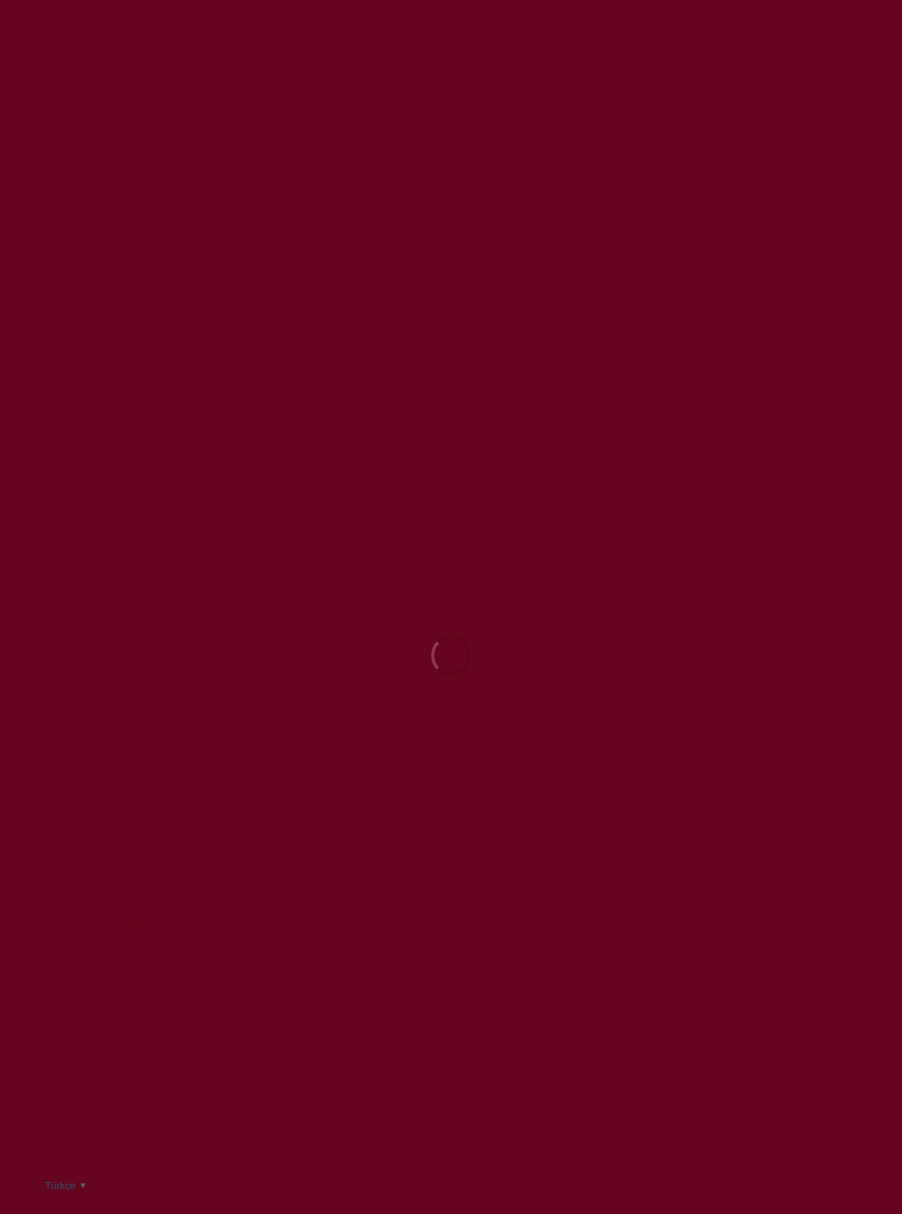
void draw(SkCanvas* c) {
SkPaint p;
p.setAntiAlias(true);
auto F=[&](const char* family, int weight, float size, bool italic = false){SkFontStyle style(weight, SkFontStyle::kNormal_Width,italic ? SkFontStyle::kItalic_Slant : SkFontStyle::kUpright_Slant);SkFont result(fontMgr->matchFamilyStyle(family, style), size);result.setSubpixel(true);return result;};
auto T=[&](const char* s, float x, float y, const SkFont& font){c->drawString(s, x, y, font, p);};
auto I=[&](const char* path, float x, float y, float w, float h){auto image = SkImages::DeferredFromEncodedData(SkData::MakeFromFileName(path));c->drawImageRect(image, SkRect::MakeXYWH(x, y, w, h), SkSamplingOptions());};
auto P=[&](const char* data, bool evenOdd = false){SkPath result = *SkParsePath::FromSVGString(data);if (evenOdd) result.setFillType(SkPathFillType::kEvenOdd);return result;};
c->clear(0xff66051f);
p.setStroke(true);
p.setStrokeWidth(3);
p.setColor(0xff5e051c);
c->drawPath(P("M438 642.5c4.5-4.5 10.5-6.5 16.5-5.5c22 4.5 18.5 37-3.5 37c-5 0-9.5-2-13-5.5"),p);
p.setColor(0xff933754);
c->drawPath(P("M438 668.5c-7-7-7-19 0-26"),p);
I("1.png",311,749,6,10);
I("1.png",311,789,6,10);
I("1.png",311,830,6,10);
I("1.png",311,871,6,10);
I("1.png",452,749,6,10);
I("1.png",452,789,6,10);
I("1.png",452,830,6,10);
I("1.png",452,871,6,10);
I("2.png",11,918,13,13);
I("3.png",135,919,13,11);
auto f1 = F("Liberation Sans",400,10);
p.setStroke(false);
p.setColor(0xff334862);
T("Türkçe",45,1189,f1);
auto f2 = F("Liberation Sans",700,8);
p.setColor(0xff666666);
T("▼",79,1188,f2);
}
